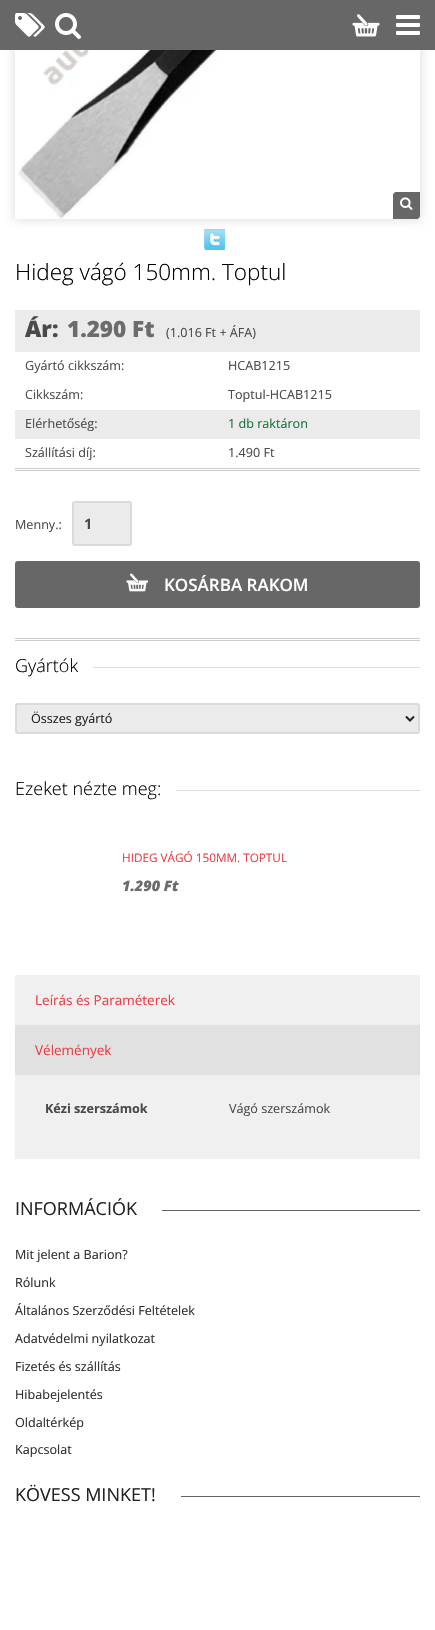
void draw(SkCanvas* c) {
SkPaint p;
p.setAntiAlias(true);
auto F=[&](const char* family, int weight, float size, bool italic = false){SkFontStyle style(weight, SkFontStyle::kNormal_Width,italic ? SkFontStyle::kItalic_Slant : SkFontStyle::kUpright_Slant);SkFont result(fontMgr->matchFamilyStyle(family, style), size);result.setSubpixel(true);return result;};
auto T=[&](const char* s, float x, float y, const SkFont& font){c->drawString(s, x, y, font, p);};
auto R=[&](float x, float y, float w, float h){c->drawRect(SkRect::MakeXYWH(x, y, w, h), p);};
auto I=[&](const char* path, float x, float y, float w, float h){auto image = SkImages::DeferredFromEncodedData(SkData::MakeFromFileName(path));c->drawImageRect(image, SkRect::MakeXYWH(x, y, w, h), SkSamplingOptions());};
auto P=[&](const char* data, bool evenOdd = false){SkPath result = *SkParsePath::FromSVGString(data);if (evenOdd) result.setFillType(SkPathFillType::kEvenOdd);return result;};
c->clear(0xffffffff);
p.setColor(0x1a000000);
p.setMaskFilter(SkMaskFilter::MakeBlur(kNormal_SkBlurStyle, 4));
c->drawRoundRect(SkRect::MakeXYWH(13,-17,409,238),5,5,p);
p.setMaskFilter(nullptr);
p.setColor(0xff676767);
R(0,0,435,50);
I("1.png",15,13,30,24);
I("2.png",55,13,26,26);
I("3.png",352,14,28,23);
I("4.png",396,15,24,20);
I("5.png",15,50,405,169);
c->drawPath(P("M396 192h24v24c0 1.5-1.5 3-3 3h-24v-24c0-1.5 1.5-3 3-3z"),p);
I("6.png",400,197,13,13);
I("7.png",204,229,21,21);
auto f1 = F("Open Sans",300,22.5);
p.setColor(0xff000000);
T("Hideg vágó 150mm. Toptul",15,280,f1);
p.setColor(0xffebebeb);
R(15,310,405,42);
auto f2 = F("Open Sans",800,22.5);
p.setColor(0xff4a4a4a);
T("Ár:",25,337,f2);
p.setColor(0xff6c6c6c);
T("1.290 Ft",67,337,f2);
auto f3 = F("Open Sans",400,12.6);
p.setColor(0xff4a4a4a);
T("(1.016 Ft + ÁFA)",166,337,f3);
T("Gyártó cikkszám:",25,370,f3);
T("HCAB1215",228,370,f3);
T("Cikkszám:",25,399,f3);
T("Toptul-HCAB1215",228,399,f3);
p.setColor(0xffebebeb);
R(15,410,405,29);
p.setColor(0xff4a4a4a);
T("Elérhetőség:",25,428,f3);
p.setColor(0xff177537);
T("1 db raktáron",228,428,f3);
p.setColor(0xff4a4a4a);
T("Szállítási díj:",25,457,f3);
T("1.490 Ft",228,457,f3);
p.setColor(0xffcccccc);
R(15,468,405,1);
R(15,470,405,1);
R(15,638,405,1);
R(15,640,405,1);
p.setColor(0xff4a4a4a);
T("Menny.:",15,529,f3);
p.setColor(0xffebebeb);
c->drawRoundRect(SkRect::MakeXYWH(73,502,58,43),2,2,p);
p.setStroke(true);
p.setStrokeWidth(2);
p.setColor(0xffdadada);
c->drawRoundRect(SkRect::MakeXYWH(73,502,58,43),2,2,p);
auto f4 = F("Open Sans",700,14.5);
p.setStroke(false);
p.setColor(0xff4a4a4a);
T("1",84,529,f4);
p.setColor(0xff676767);
c->drawRoundRect(SkRect::MakeXYWH(16,562,403,45),2,2,p);
p.setStroke(true);
c->drawRoundRect(SkRect::MakeXYWH(16,562,403,45),2,2,p);
I("8.png",126,573,23,19);
auto f5 = F("Open Sans",600,17);
p.setStroke(false);
p.setColor(0xffffffff);
T("KOSÁRBA RAKOM",164,591,f5);
auto f6 = F("Open Sans",300,18);
p.setColor(0xff000000);
T("Gyártók",15,672,f6);
p.setColor(0xffdddddd);
R(93,667,327,1);
p.setColor(0xffebebeb);
c->drawRoundRect(SkRect::MakeXYWH(16,704,403,29),2,2,p);
p.setStroke(true);
p.setColor(0xffdadada);
c->drawRoundRect(SkRect::MakeXYWH(16,704,403,29),2,2,p);
p.setColor(0xff222222);
c->drawPath(P("M406 716.5l4 4l4-4"),p);
p.setStroke(false);
T("Összes gyártó",31,723,f3);
p.setColor(0xff000000);
T("Ezeket nézte meg:",15,795,f6);
p.setColor(0xffdddddd);
R(176,790,244,1);
auto f7 = F("Open Sans",400,11.75);
p.setColor(0xffe93f45);
T("HIDEG VÁGÓ 150MM. TOPTUL",122,862,f7);
auto f8 = F("Open Sans",800,14.5,true);
p.setColor(0xff6c6c6c);
T("1.290 Ft",122,891,f8);
p.setColor(0xffe1e1e1);
R(15,1025,405,50);
p.setColor(0xfff0f0f0);
R(15,975,405,50);
auto f9 = F("Open Sans",400,13.5);
p.setColor(0xffe93f45);
T("Leírás és Paraméterek",35,1005,f9);
T("Vélemények",35,1055,f9);
p.setColor(0xfff0f0f0);
R(15,1075,405,84);
auto f10 = F("Open Sans",700,12.6);
p.setColor(0xff4a4a4a);
T("Kézi szerszámok",45,1113,f10);
T("Vágó szerszámok",229,1113,f3);
auto f11 = F("Open Sans",400,18);
p.setColor(0xff222222);
T("INFORMÁCIÓK",15,1215,f11);
p.setColor(0xff656565);
R(162,1210,258,1);
p.setColor(0xff2e2e2e);
T("Mit jelent a Barion?",15,1259,f3);
T("Rólunk",15,1287,f3);
T("Általános Szerződési Feltételek",15,1315,f3);
T("Adatvédelmi nyilatkozat",15,1343,f3);
T("Fizetés és szállítás",15,1371,f3);
T("Hibabejelentés",15,1399,f3);
T("Oldaltérkép",15,1427,f3);
T("Kapcsolat",15,1454,f3);
p.setColor(0xff222222);
T("KÖVESS MINKET!",15,1501,f11);
p.setColor(0xff656565);
R(181,1496,239,1);
}
